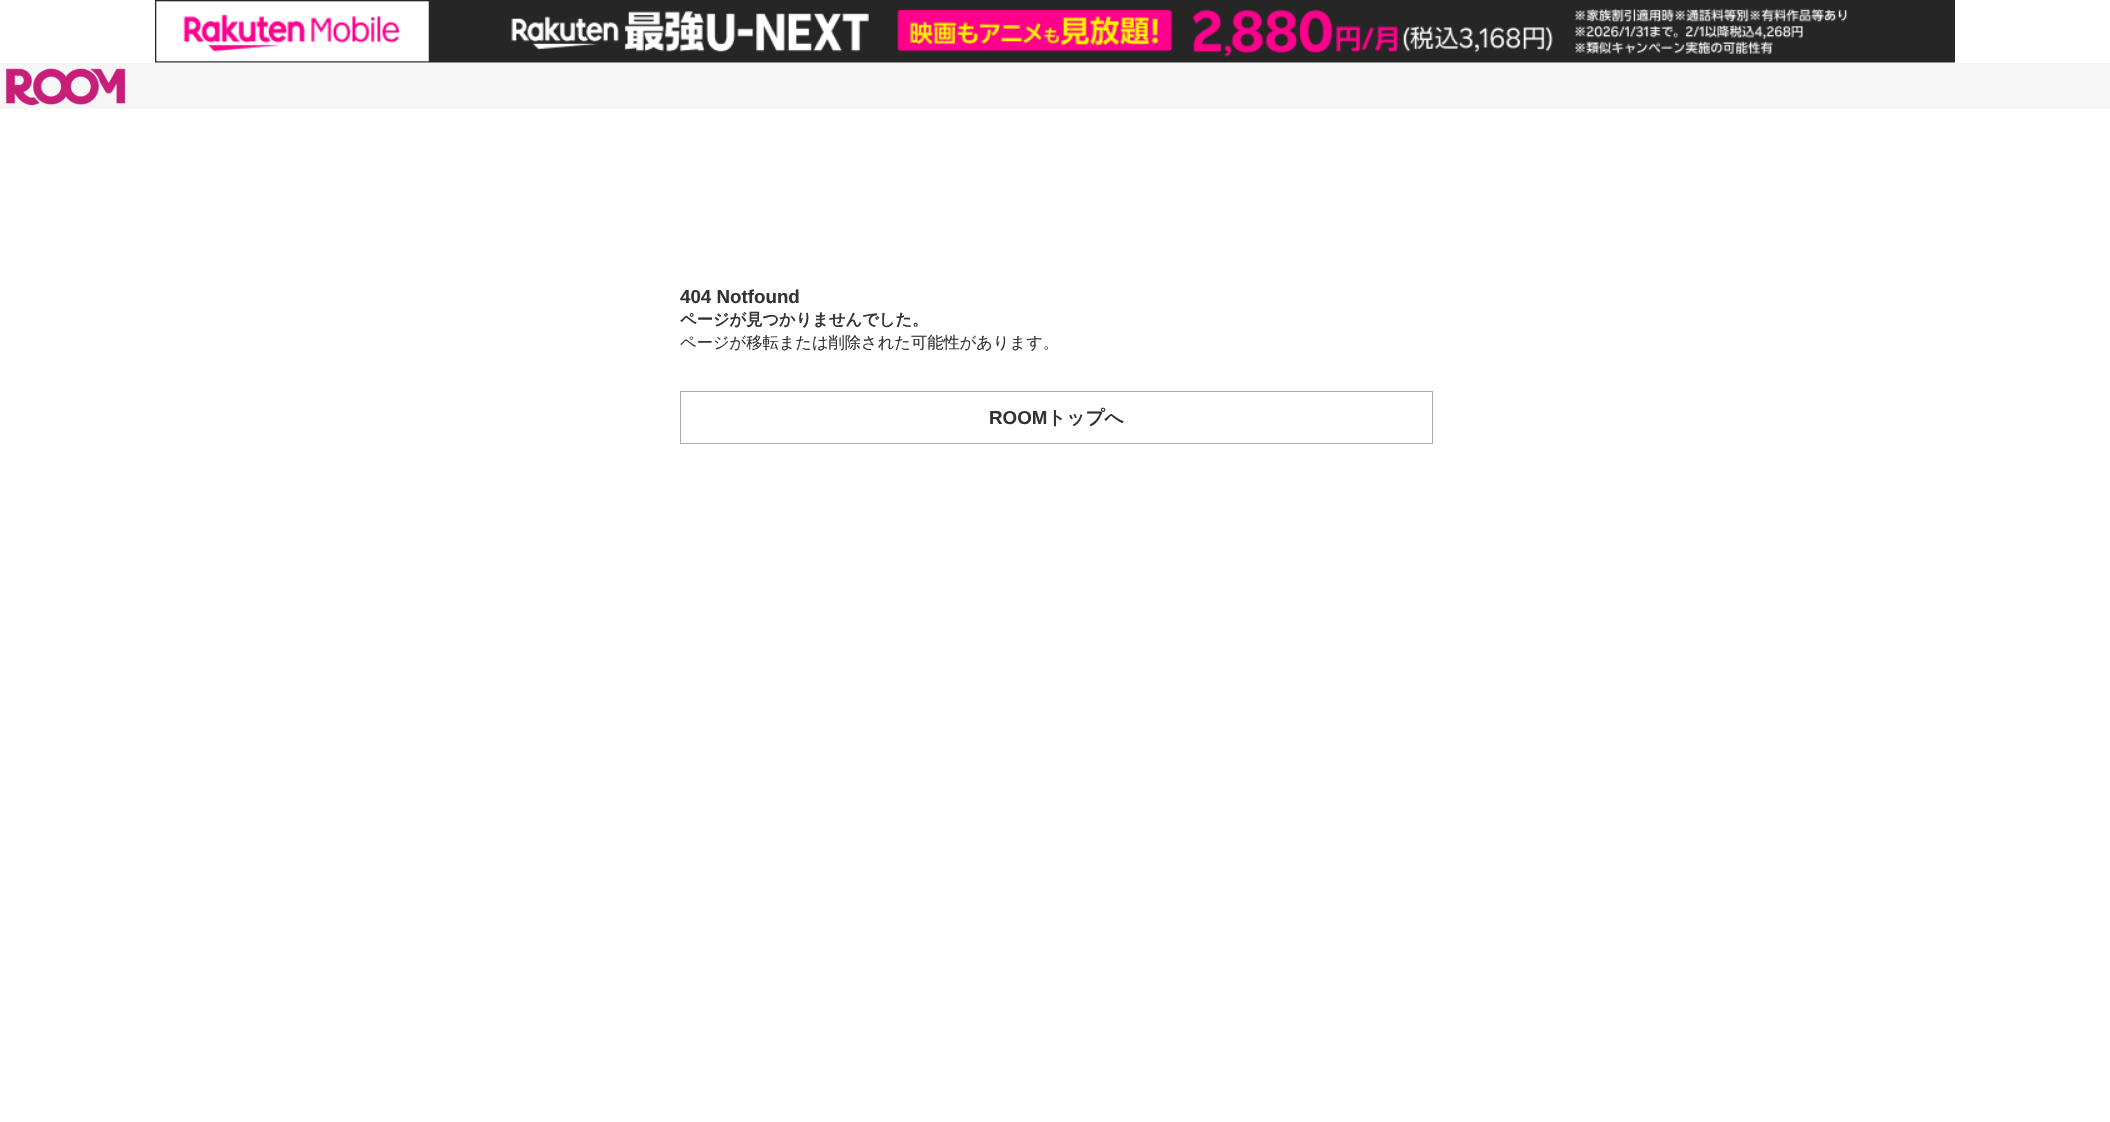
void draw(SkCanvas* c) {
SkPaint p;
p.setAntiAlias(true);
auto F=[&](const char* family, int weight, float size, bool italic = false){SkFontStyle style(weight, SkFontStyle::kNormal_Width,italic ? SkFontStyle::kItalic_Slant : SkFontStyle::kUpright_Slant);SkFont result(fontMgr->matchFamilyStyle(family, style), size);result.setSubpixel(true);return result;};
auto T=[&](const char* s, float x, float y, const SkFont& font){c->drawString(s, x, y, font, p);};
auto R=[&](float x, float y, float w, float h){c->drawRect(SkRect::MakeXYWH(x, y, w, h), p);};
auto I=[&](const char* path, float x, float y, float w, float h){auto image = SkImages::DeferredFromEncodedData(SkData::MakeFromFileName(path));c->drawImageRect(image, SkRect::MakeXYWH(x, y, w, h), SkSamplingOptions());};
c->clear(0xffffffff);
I("1.png",155,0,1800,63);
p.setColor(0xfff6f6f6);
R(0,63,2110,46);
I("2.png",6,68,119,37);
auto f1 = F("Liberation Sans",700,18.75);
p.setColor(0xff333333);
T("404 Notfound",680,303,f1);
auto f2 = F("WenQuanYi Zen Hei",700,16.25);
T("ページが見つかりませんでした。",680,325,f2);
auto f3 = F("WenQuanYi Zen Hei",500,16.25);
T("ページが移転または削除された可能性があります。",680,348,f3);
p.setStroke(true);
p.setStrokeWidth(1);
p.setColor(0xffababab);
c->drawRect(SkRect::MakeXYWH(680.5,391.5,752,52),p);
p.setStroke(false);
p.setColor(0xff333333);
T("ROOM",989,424,f1);
auto f4 = F("WenQuanYi Zen Hei",700,18.75);
T("トップへ",1047,424,f4);
}
